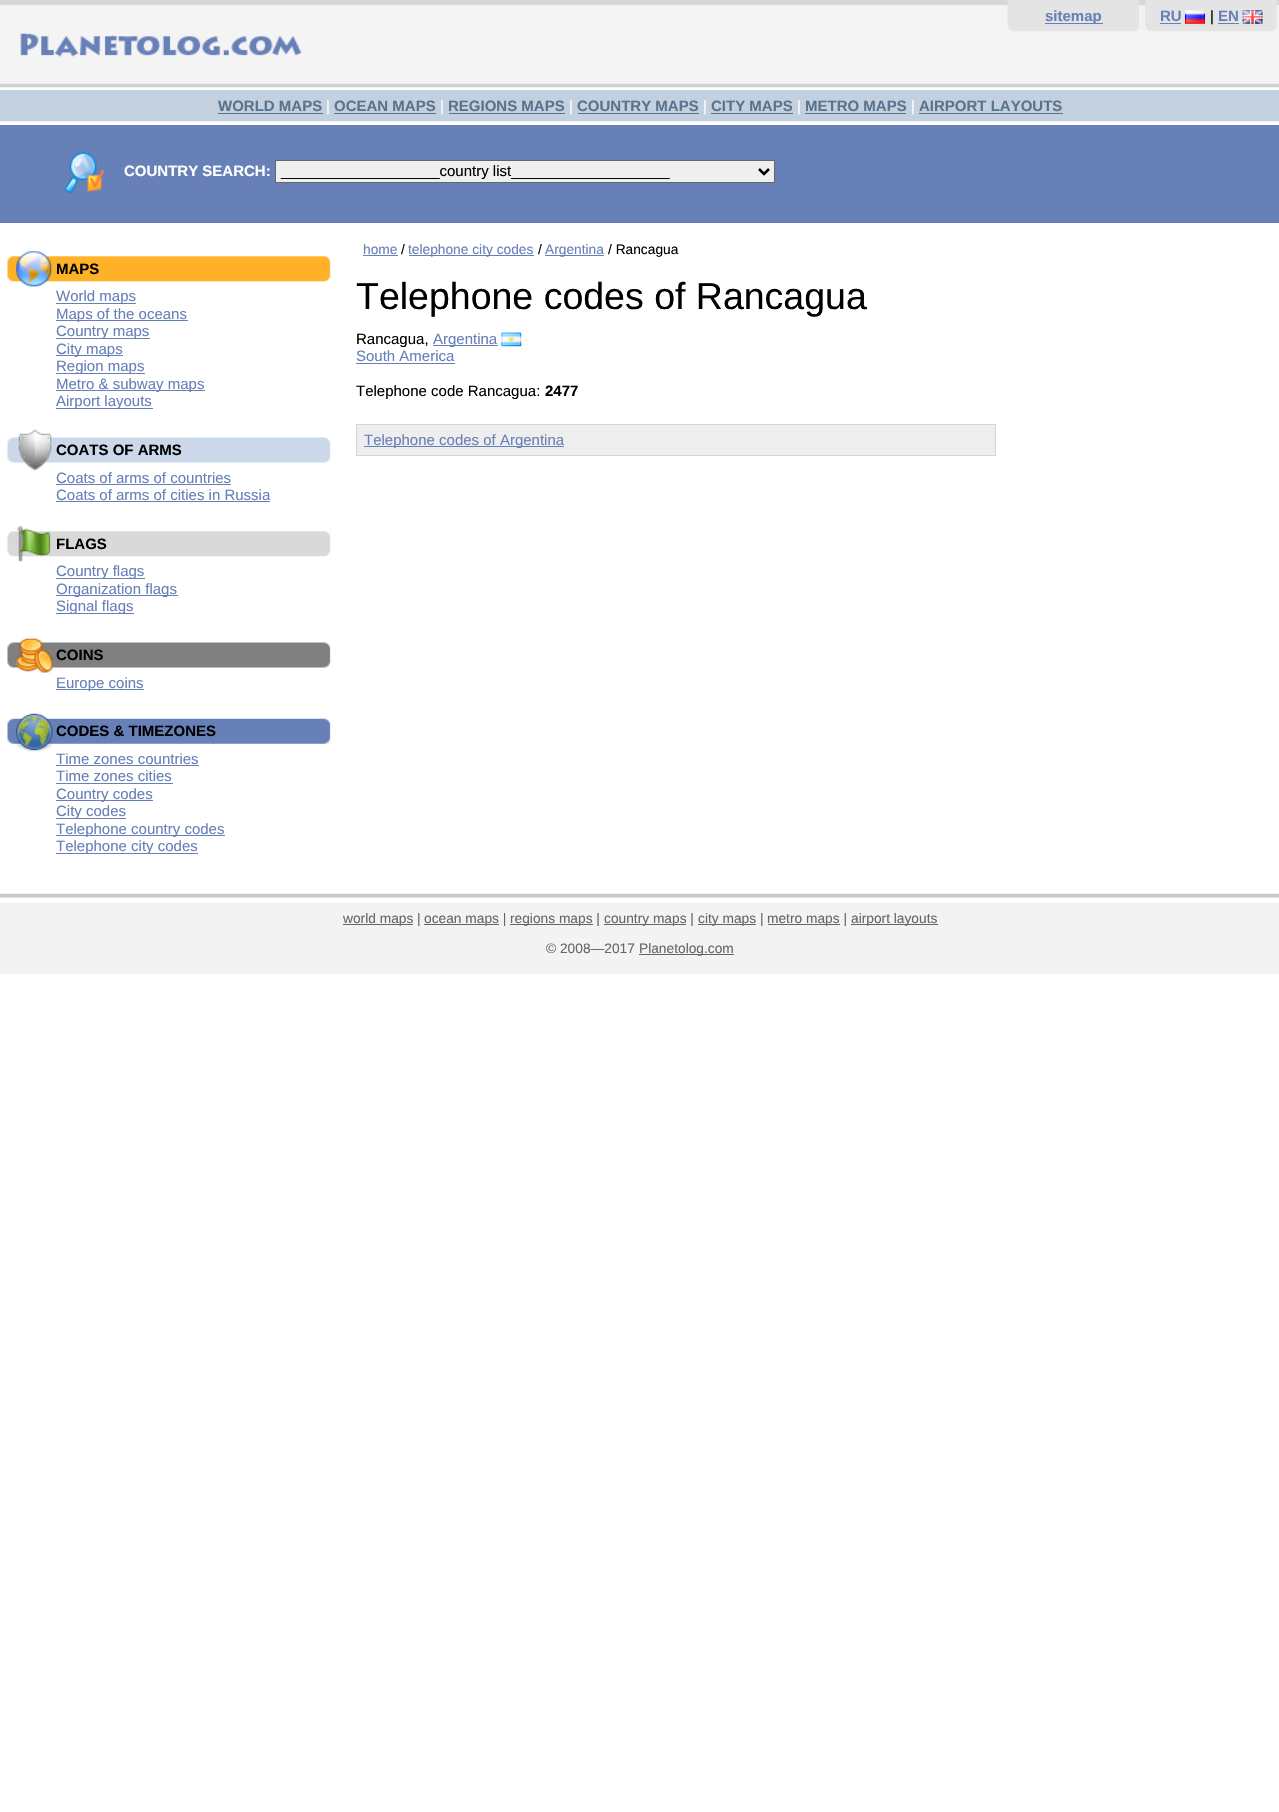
void draw(SkCanvas* c) {
SkPaint p;
p.setAntiAlias(true);
auto F=[&](const char* family, int weight, float size, bool italic = false){SkFontStyle style(weight, SkFontStyle::kNormal_Width,italic ? SkFontStyle::kItalic_Slant : SkFontStyle::kUpright_Slant);SkFont result(fontMgr->matchFamilyStyle(family, style), size);result.setSubpixel(true);return result;};
auto T=[&](const char* s, float x, float y, const SkFont& font){c->drawString(s, x, y, font, p);};
auto R=[&](float x, float y, float w, float h){c->drawRect(SkRect::MakeXYWH(x, y, w, h), p);};
auto I=[&](const char* path, float x, float y, float w, float h){auto image = SkImages::DeferredFromEncodedData(SkData::MakeFromFileName(path));c->drawImageRect(image, SkRect::MakeXYWH(x, y, w, h), SkSamplingOptions());};
auto P=[&](const char* data, bool evenOdd = false){SkPath result = *SkParsePath::FromSVGString(data);if (evenOdd) result.setFillType(SkPathFillType::kEvenOdd);return result;};
c->clear(0xffffffff);
I("1.png",0,0,1279,88);
p.setColor(0xffe4e4e4);
R(1142,0,1,31);
I("2.png",1005,0,138,32);
p.setColor(0xff6780b8);
R(1045,23,58,1);
auto f1 = F("Liberation Sans",700,15);
T("sitemap",1045,21,f1);
I("3.png",1143,0,136,32);
T("RU",1160,21,f1);
R(1160,23,21,1);
I("4.png",1185,10,20,14);
auto f2 = F("Liberation Sans",400,15);
p.setColor(0xff000000);
T("|",1210,21,f2);
p.setColor(0xff6780b8);
T("EN",1218,21,f1);
R(1218,23,21,1);
I("5.png",1242,10,21,14);
I("6.png",20,33,282,24);
I("7.png",0,87,1279,38);
p.setColor(0xff59738c);
T("WORLD MAPS",218,111,f1);
R(218,113,105,1);
p.setColor(0xffffffff);
T("|",326,111,f2);
p.setColor(0xff59738c);
T("OCEAN MAPS",334,111,f1);
R(334,113,102,1);
p.setColor(0xffffffff);
T("|",440,111,f2);
p.setColor(0xff59738c);
T("REGIONS MAPS",448,111,f1);
R(449,113,116,1);
p.setColor(0xffffffff);
T("|",569,111,f2);
p.setColor(0xff59738c);
T("COUNTRY MAPS",577,111,f1);
R(578,113,121,1);
p.setColor(0xffffffff);
T("|",703,111,f2);
p.setColor(0xff59738c);
T("CITY MAPS",711,111,f1);
R(711,113,82,1);
p.setColor(0xffffffff);
T("|",797,111,f2);
p.setColor(0xff59738c);
T("METRO MAPS",805,111,f1);
R(805,113,101,1);
p.setColor(0xffffffff);
T("|",911,111,f2);
p.setColor(0xff59738c);
T("AIRPORT LAYOUTS",919,111,f1);
R(919,113,144,1);
p.setColor(0xff6780b8);
R(0,125,1279,98);
I("8.png",64,152,40,42);
p.setColor(0xffffffff);
T("COUNTRY SEARCH:",124,176,f1);
p.setColor(0xffefefef);
c->drawRect(SkRect::MakeXYWH(275.5,160.5,499,22),p);
p.setStroke(true);
p.setStrokeWidth(1);
p.setColor(0xff666666);
c->drawRect(SkRect::MakeXYWH(275.5,160.5,499,22),p);
p.setStrokeWidth(2.5);
p.setColor(0xff000000);
c->drawPath(P("M759 169l5 5l5-5"),p);
p.setStroke(false);
T("___________________country list___________________",281,176,f2);
I("9.png",7,251,324,36);
T("MAPS",56,274,f1);
p.setColor(0xff6780b8);
R(56,303,80,1);
T("World maps",56,301,f2);
R(56,320,132,1);
T("Maps of the oceans",56,319,f2);
R(56,338,94,1);
T("Country maps",56,336,f2);
R(56,355,67,1);
T("City maps",56,354,f2);
R(56,373,89,1);
T("Region maps",56,371,f2);
R(56,390,149,1);
T("Metro & subway maps",56,389,f2);
R(56,408,97,1);
T("Airport layouts",56,406,f2);
I("10.png",7,429,324,42);
p.setColor(0xff000000);
T("COATS OF ARMS",56,455,f1);
p.setColor(0xff6780b8);
T("Coats of arms of countries",56,483,f2);
R(56,484,175,1);
T("Coats of arms of cities in Russia",56,500,f2);
R(56,501,214,1);
I("11.png",7,526,324,36);
p.setColor(0xff000000);
T("FLAGS",56,549,f1);
p.setColor(0xff6780b8);
R(56,578,89,1);
T("Country flags",56,576,f2);
R(56,595,122,1);
T("Organization flags",56,594,f2);
R(56,613,78,1);
T("Signal flags",56,611,f2);
I("12.png",7,637,324,36);
p.setColor(0xff000000);
T("COINS",56,660,f1);
p.setColor(0xff6780b8);
R(56,689,88,1);
T("Europe coins",56,688,f2);
I("13.png",7,713,324,39);
p.setColor(0xff000000);
T("CODES & TIMEZONES",56,736,f1);
p.setColor(0xff6780b8);
T("Time zones countries",56,764,f2);
R(56,765,143,1);
T("Time zones cities",56,781,f2);
R(56,783,117,1);
R(56,800,97,1);
T("Country codes",56,799,f2);
R(56,818,70,1);
T("City codes",56,816,f2);
R(56,835,169,1);
T("Telephone country codes",56,834,f2);
R(56,853,142,1);
T("Telephone city codes",56,851,f2);
auto f3 = F("Liberation Sans",400,13.75);
T("home",363,254,f3);
R(363,255,35,1);
p.setColor(0xff000000);
T("/",401,254,f3);
p.setColor(0xff6780b8);
R(409,255,125,1);
T("telephone city codes",408,254,f3);
p.setColor(0xff000000);
T("/",538,254,f3);
p.setColor(0xff6780b8);
R(545,255,59,1);
T("Argentina",545,254,f3);
p.setColor(0xff000000);
T("/ Rancagua",608,254,f3);
auto f4 = F("Liberation Sans",400,37.5);
T("Telephone codes of Rancagua",356,309,f4);
T("Rancagua,",356,344,f2);
p.setColor(0xff6780b8);
R(433,345,65,1);
T("Argentina",433,344,f2);
I("14.png",501,332,21,15);
T("South America",356,361,f2);
R(356,363,99,1);
p.setColor(0xff000000);
T("Telephone code Rancagua:",356,396,f2);
T("2477",545,396,f1);
p.setColor(0xffeeeeee);
c->drawRect(SkRect::MakeXYWH(356.5,424.5,639,31),p);
p.setStroke(true);
p.setStrokeWidth(1);
p.setColor(0xffd4d4d4);
c->drawRect(SkRect::MakeXYWH(356.5,424.5,639,31),p);
p.setStroke(false);
p.setColor(0xff6780b8);
R(364,446,200,1);
T("Telephone codes of Argentina",364,445,f2);
I("15.png",0,893,1279,81);
p.setColor(0xff666666);
R(343,924,70,1);
T("world maps |",343,923,f3);
R(424,924,75,1);
T("ocean maps |",424,923,f3);
R(510,924,83,1);
T("regions maps |",510,923,f3);
R(604,924,82,1);
T("country maps |",604,923,f3);
R(698,924,58,1);
T("city maps |",698,923,f3);
R(768,924,72,1);
T("metro maps |",767,923,f3);
R(851,924,87,1);
T("airport layouts",851,923,f3);
T("© 2008—2017",546,953,f3);
R(639,954,95,1);
T("Planetolog.com",639,953,f3);
}
